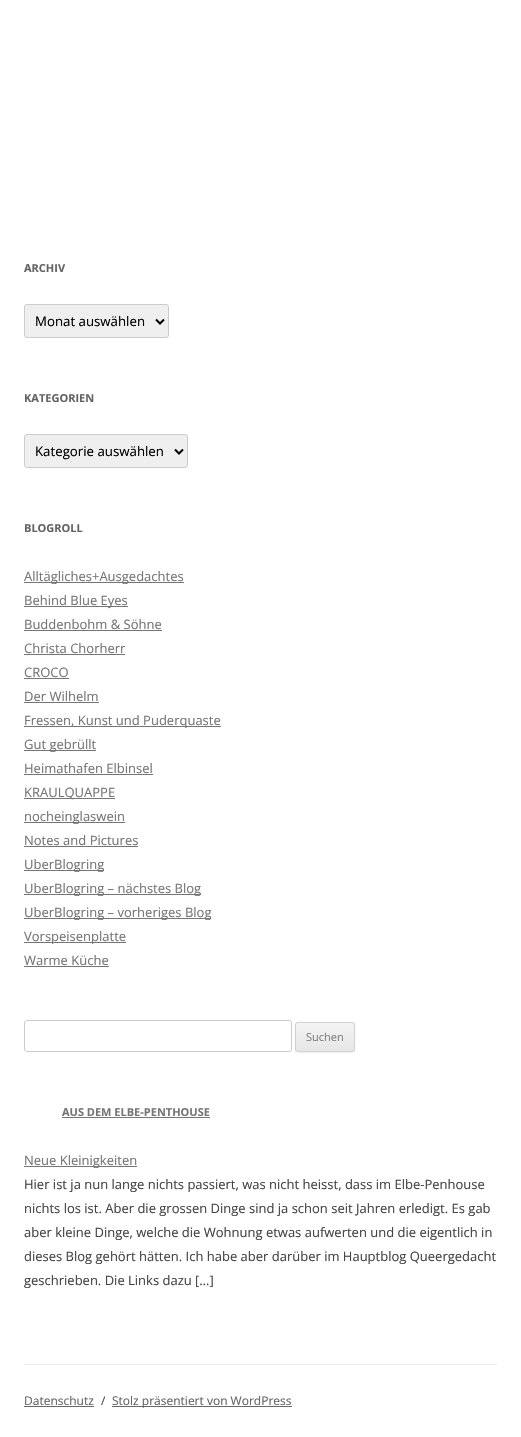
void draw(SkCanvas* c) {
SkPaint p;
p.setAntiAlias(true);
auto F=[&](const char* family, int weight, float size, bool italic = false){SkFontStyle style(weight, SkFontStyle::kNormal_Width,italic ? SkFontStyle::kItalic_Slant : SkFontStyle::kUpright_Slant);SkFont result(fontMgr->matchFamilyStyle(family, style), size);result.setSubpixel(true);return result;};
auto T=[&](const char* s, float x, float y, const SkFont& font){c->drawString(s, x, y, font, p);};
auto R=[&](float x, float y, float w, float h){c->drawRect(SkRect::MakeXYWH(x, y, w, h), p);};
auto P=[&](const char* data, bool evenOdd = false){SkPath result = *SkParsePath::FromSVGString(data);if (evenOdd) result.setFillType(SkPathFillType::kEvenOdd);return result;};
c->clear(0xffffffff);
auto f1 = F("Open Sans",700,11);
p.setColor(0xff636363);
T("ARCHIV",24,272,f1);
p.setColor(0xffefefef);
c->drawRoundRect(SkRect::MakeXYWH(24.5,304.5,144,33),2.5,2.5,p);
p.setStroke(true);
p.setStrokeWidth(1);
p.setColor(0xffcccccc);
c->drawRoundRect(SkRect::MakeXYWH(24.5,304.5,144,33),2.5,2.5,p);
p.setStrokeWidth(2);
p.setColor(0xff000000);
c->drawPath(P("M156 319.5l4 4l4-4"),p);
auto f2 = F("Open Sans",400,13.25);
p.setStroke(false);
T("Monat auswählen",35,326,f2);
p.setColor(0xff636363);
T("KATEGORIEN",24,402,f1);
p.setColor(0xffefefef);
c->drawRoundRect(SkRect::MakeXYWH(24.5,434.5,163,33),2.5,2.5,p);
p.setStroke(true);
p.setStrokeWidth(1);
p.setColor(0xffcccccc);
c->drawRoundRect(SkRect::MakeXYWH(24.5,434.5,163,33),2.5,2.5,p);
p.setStrokeWidth(2);
p.setColor(0xff000000);
c->drawPath(P("M175 449.5l4 4l4-4"),p);
p.setStroke(false);
T("Kategorie auswählen",35,456,f2);
p.setColor(0xff636363);
T("BLOGROLL",24,532,f1);
p.setColor(0xff757575);
R(24,582,160,1);
auto f3 = F("Open Sans",400,13);
T("Alltägliches+Ausgedachtes",24,581,f3);
R(24,606,104,1);
T("Behind Blue Eyes",24,605,f3);
T("Buddenbohm & Söhne",24,629,f3);
R(24,630,138,1);
T("Christa Chorherr",24,653,f3);
R(24,654,101,1);
T("CROCO",24,677,f3);
R(24,678,45,1);
T("Der Wilhelm",24,701,f3);
R(24,702,75,1);
R(24,726,197,1);
T("Fressen, Kunst und Puderquaste",24,725,f3);
R(24,750,72,1);
T("Gut gebrüllt",24,749,f3);
T("Heimathafen Elbinsel",24,773,f3);
R(24,774,129,1);
R(24,798,91,1);
T("KRAULQUAPPE",24,797,f3);
R(24,822,101,1);
T("nocheinglaswein",24,821,f3);
T("Notes and Pictures",24,845,f3);
R(24,846,114,1);
R(24,870,80,1);
T("UberBlogring",24,869,f3);
R(24,894,177,1);
T("UberBlogring – nächstes Blog",24,893,f3);
R(24,918,187,1);
T("UberBlogring – vorheriges Blog",24,917,f3);
R(24,942,102,1);
T("Vorspeisenplatte",24,941,f3);
T("Warme Küche",24,965,f3);
R(24,966,85,1);
p.setStroke(true);
p.setStrokeWidth(1);
p.setColor(0xffcccccc);
c->drawRoundRect(SkRect::MakeXYWH(24.5,1020.5,267,31),2.5,2.5,p);
p.setStroke(false);
p.setColor(0x1a404040);
p.setMaskFilter(SkMaskFilter::MakeBlur(kNormal_SkBlurStyle, 1));
c->drawRoundRect(SkRect::MakeXYWH(295,1023,60,30),3,3,p);
p.setMaskFilter(nullptr);
c->save();
c->clipPath(P("M298 1022h54c1.5 0 3 1.5 3 3v24c0 1.5-1.5 3-3 3h-54c-1.5 0-3-1.5-3-3v-24c0-1.5 1.5-3 3-3z"),true);
{
const SkColor colors[] = {0xfff4f4f4,0xffe6e6e6};
const float stops[] = {0,1};
const SkPoint ends[] = {{325,1023}, {325,1051}};
p.setShader(SkGradientShader::MakeLinear(ends, colors, stops, 2, SkTileMode::kClamp));
p.setAlpha(255);
}
R(295,1023,60,28);
c->restore();
p.setStroke(true);
p.setShader(nullptr);
p.setColor(0xffd2d2d2);
c->drawRoundRect(SkRect::MakeXYWH(295.5,1022.5,59,29),2.5,2.5,p);
auto f4 = F("Open Sans",400,11);
p.setStroke(false);
p.setColor(0xff7c7c7c);
T("Suchen",306,1041,f4);
p.setColor(0xff757575);
T("AUS DEM ELBE-PENTHOUSE",62,1116,f1);
R(62,1117,148,1);
R(24,1166,113,1);
T("Neue Kleinigkeiten",24,1165,f3);
p.setColor(0xff444444);
T("Hier ist ja nun lange nichts passiert, was nicht heisst, dass im Elbe-Penhouse",24,1189,f3);
T("nichts los ist. Aber die grossen Dinge sind ja schon seit Jahren erledigt. Es gab",24,1213,f3);
T("aber kleine Dinge, welche die Wohnung etwas aufwerten und die eigentlich in",24,1237,f3);
T("dieses Blog gehört hätten. Ich habe aber darüber im Hauptblog Queergedacht",24,1261,f3);
T("geschrieben. Die Links dazu […]",24,1285,f3);
p.setColor(0xffededed);
R(24,1364,473,1);
auto f5 = F("Open Sans",400,12);
p.setColor(0xff636363);
T("Datenschutz",24,1405,f5);
p.setColor(0xff686868);
R(24,1406,70,1);
p.setColor(0xff444444);
T("/",101,1405,f5);
p.setColor(0xff686868);
R(112,1406,180,1);
p.setColor(0xff636363);
T("Stolz präsentiert von WordPress",112,1405,f5);
}
